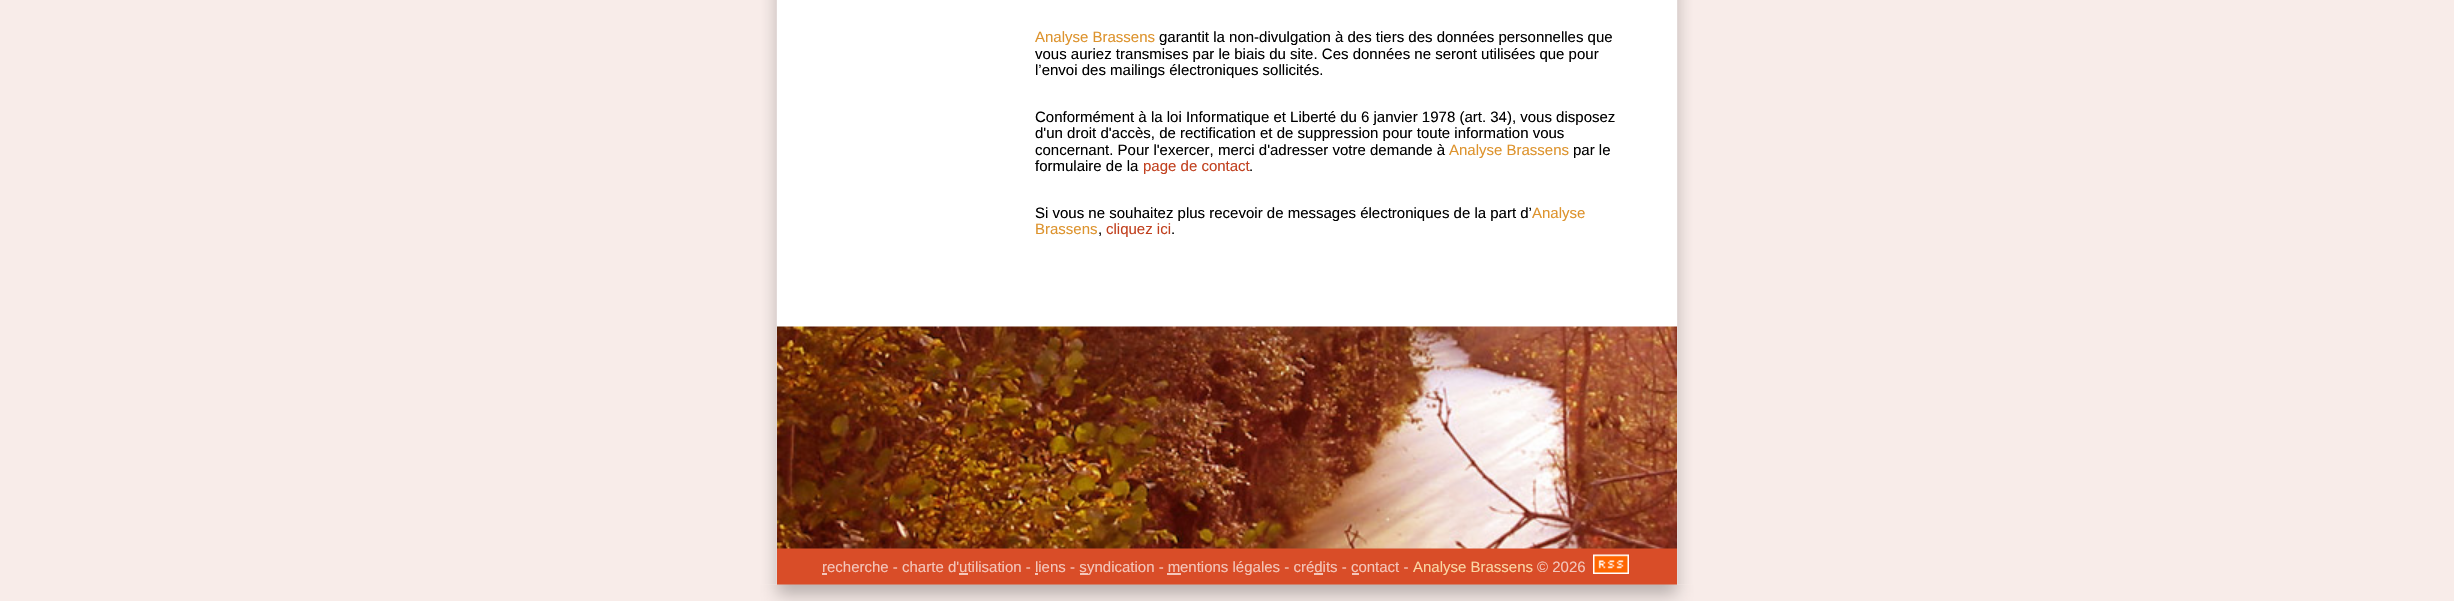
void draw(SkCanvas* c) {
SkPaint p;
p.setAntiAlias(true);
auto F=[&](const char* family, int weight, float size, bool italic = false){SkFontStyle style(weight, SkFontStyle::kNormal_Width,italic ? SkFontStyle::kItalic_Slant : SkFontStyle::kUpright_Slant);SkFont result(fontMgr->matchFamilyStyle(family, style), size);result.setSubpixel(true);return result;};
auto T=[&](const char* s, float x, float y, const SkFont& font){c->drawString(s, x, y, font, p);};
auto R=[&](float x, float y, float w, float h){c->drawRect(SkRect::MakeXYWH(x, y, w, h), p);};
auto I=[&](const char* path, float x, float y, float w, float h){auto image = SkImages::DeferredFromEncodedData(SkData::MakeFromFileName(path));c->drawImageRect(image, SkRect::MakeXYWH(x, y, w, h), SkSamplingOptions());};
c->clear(0xfff8ece9);
I("1.png",702,0,1050,585);
p.setColor(0xffffffff);
R(777,0,900,327);
auto f1 = F("Liberation Sans",400,15);
p.setColor(0xffdd932d);
T("Analyse Brassens",1035,42,f1);
p.setColor(0xff000000);
T("garantit la non-divulgation à des tiers des données personnelles que",1159,42,f1);
T("vous auriez transmises par le biais du site. Ces données ne seront utilisées que pour",1035,59,f1);
T("l’envoi des mailings électroniques sollicités.",1035,75,f1);
T("Conformément à la loi Informatique et Liberté du 6 janvier 1978 (art. 34), vous disposez",1035,122,f1);
T("d'un droit d'accès, de rectification et de suppression pour toute information vous",1035,138,f1);
T("concernant. Pour l'exercer, merci d'adresser votre demande à",1035,155,f1);
p.setColor(0xffdd932d);
T("Analyse Brassens",1449,155,f1);
p.setColor(0xff000000);
T("par le",1573,155,f1);
T("formulaire de la",1035,171,f1);
p.setColor(0xffc1401e);
T("page de contact",1143,171,f1);
p.setColor(0xff000000);
T(".",1249,171,f1);
T("Si vous ne souhaitez plus recevoir de messages électroniques de la part d’",1035,218,f1);
p.setColor(0xffdd932d);
T("Analyse",1532,218,f1);
T("Brassens",1035,234,f1);
p.setColor(0xff000000);
T(",",1098,234,f1);
p.setColor(0xffc1401e);
T("cliquez ici",1106,234,f1);
p.setColor(0xff000000);
T(".",1171,234,f1);
p.setColor(0xffd94d28);
R(777,548,900,37);
I("2.png",777,326,900,223);
p.setColor(0xfff4c6ba);
T("recherche - charte d'utilisation - liens - s",822,572,f1);
R(822,573,5,2);
R(1080,573,8,2);
T("yndication - m",1087,572,f1);
R(1167,573,14,2);
T("entions légales - crédits - contact -",1180,572,f1);
p.setColor(0xfffad6a4);
T("Analyse Brassens",1413,572,f1);
p.setColor(0xfff4c6ba);
T("© 2026",1537,572,f1);
I("3.png",1593,554,36,20);
R(959,573,9,2);
R(1035,573,3,2);
R(1314,573,9,2);
R(1352,573,7,2);
I("4.png",702,584,1050,17);
}
